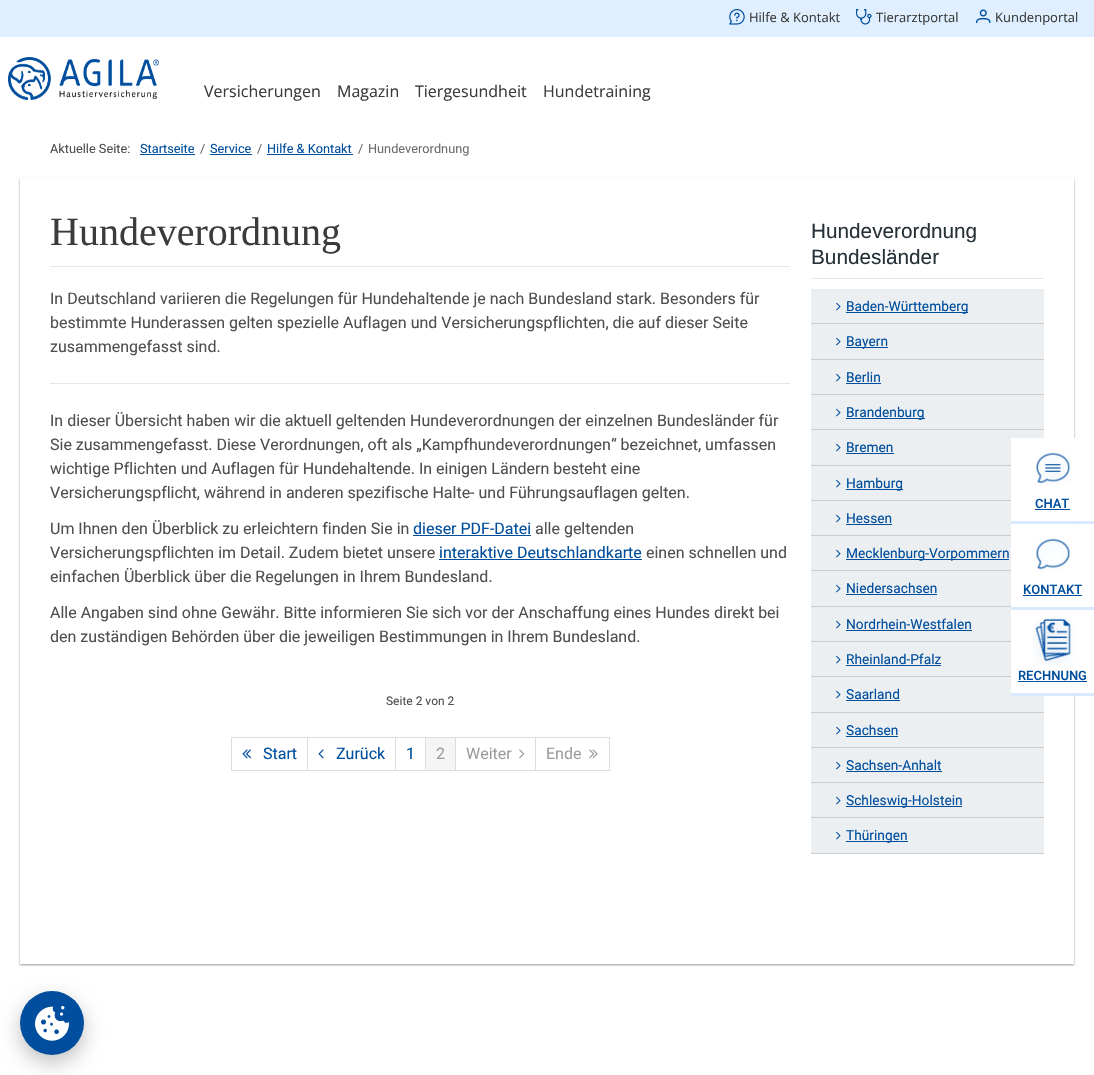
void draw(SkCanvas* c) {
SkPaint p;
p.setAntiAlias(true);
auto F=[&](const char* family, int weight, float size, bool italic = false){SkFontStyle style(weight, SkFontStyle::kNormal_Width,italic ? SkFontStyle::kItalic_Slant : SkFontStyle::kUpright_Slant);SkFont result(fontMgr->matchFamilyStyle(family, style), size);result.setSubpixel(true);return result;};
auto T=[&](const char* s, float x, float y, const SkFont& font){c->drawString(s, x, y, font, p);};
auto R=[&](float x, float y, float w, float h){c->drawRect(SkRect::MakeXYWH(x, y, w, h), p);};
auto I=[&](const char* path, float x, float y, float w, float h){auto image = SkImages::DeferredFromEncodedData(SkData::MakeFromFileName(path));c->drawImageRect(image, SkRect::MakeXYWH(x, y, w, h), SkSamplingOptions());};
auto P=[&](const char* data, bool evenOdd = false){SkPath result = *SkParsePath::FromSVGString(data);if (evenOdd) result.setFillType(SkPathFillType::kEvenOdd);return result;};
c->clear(0xffffffff);
p.setColor(0xffdfefff);
R(0,0,1094,37);
I("1.png",729,9,16,16);
auto f1 = F("Open Sans",400,13);
p.setColor(0xff3b3b3b);
T("Hilfe & Kontakt",749,22,f1);
I("2.png",856,9,16,16);
T("Tierarztportal",876,22,f1);
I("3.png",976,9,15,15);
T("Kundenportal",995,22,f1);
I("4.png",8,57,151,43);
auto f2 = F("Open Sans",400,16);
T("Versicherungen",204,97,f2);
T("Magazin",337,97,f2);
T("Tiergesundheit",415,97,f2);
T("Hundetraining",543,97,f2);
auto f3 = F("Roboto",400,12.75);
p.setColor(0xff4f4f4f);
T("Aktuelle Seite:",50,153,f3);
p.setColor(0xff004e9e);
T("Startseite",140,153,f3);
R(140,154,55,1);
p.setColor(0xff6b6b6b);
T("/",200,153,f3);
p.setColor(0xff004e9e);
T("Service",210,153,f3);
R(210,154,42,1);
p.setColor(0xff6b6b6b);
T("/",257,153,f3);
p.setColor(0xff004e9e);
T("Hilfe & Kontakt",267,153,f3);
R(267,154,86,1);
p.setColor(0xff6b6b6b);
T("/",358,153,f3);
T("Hundeverordnung",368,153,f3);
c->save();
c->clipPath(P("M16 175h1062v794h-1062zm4 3h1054v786h-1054z",true),true);
p.setColor(0xff979797);
p.setMaskFilter(SkMaskFilter::MakeBlur(kNormal_SkBlurStyle, 1));
c->drawRect(SkRect::MakeXYWH(20,179,1054,786),p);
p.setMaskFilter(nullptr);
c->restore();
p.setColor(0xffe7e7e7);
R(50,266,740,1);
auto f4 = F("Liberation Serif",400,40);
p.setColor(0xff3b3b3b);
T("Hundeverordnung",50,245,f4);
auto f5 = F("Roboto",400,16);
p.setColor(0xff4f4f4f);
T("In Deutschland variieren die Regelungen für Hundehaltende je nach Bundesland stark. Besonders für",50,304,f5);
T("bestimmte Hunderassen gelten spezielle Auflagen und Versicherungspflichten, die auf dieser Seite",50,328,f5);
T("zusammengefasst sind.",50,352,f5);
p.setColor(0xffe7e7e7);
R(50,383,740,1);
p.setColor(0xff4f4f4f);
T("In dieser Übersicht haben wir die aktuell geltenden Hundeverordnungen der einzelnen Bundesländer für",50,426,f5);
T("Sie zusammengefasst. Diese Verordnungen, oft als „Kampfhundeverordnungen“ bezeichnet, umfassen",50,450,f5);
T("wichtige Pflichten und Auflagen für Hundehaltende. In einigen Ländern besteht eine",50,474,f5);
T("Versicherungspflicht, während in anderen spezifische Halte- und Führungsauflagen gelten.",50,498,f5);
T("Um Ihnen den Überblick zu erleichtern finden Sie in",50,534,f5);
p.setColor(0xff004e9e);
T("dieser PDF-Datei",413,534,f5);
R(413,535,118,1);
p.setColor(0xff4f4f4f);
T("alle geltenden",535,534,f5);
T("Versicherungspflichten im Detail. Zudem bietet unsere",50,558,f5);
p.setColor(0xff004e9e);
T("interaktive Deutschlandkarte",439,558,f5);
R(439,559,203,1);
p.setColor(0xff4f4f4f);
T("einen schnellen und",646,558,f5);
T("einfachen Überblick über die Regelungen in Ihrem Bundesland.",50,582,f5);
T("Alle Angaben sind ohne Gewähr. Bitte informieren Sie sich vor der Anschaffung eines Hundes direkt bei",50,618,f5);
T("den zuständigen Behörden über die jeweiligen Bestimmungen in Ihrem Bundesland.",50,642,f5);
auto f6 = F("Roboto",400,12);
T("Seite 2 von 2",386,705,f6);
p.setStroke(true);
p.setStrokeWidth(1);
p.setColor(0xffdddddd);
c->drawRect(SkRect::MakeXYWH(231.5,737.5,76,33),p);
I("5.png",242,749,9,10);
p.setStroke(false);
p.setColor(0xff004e9e);
T("Start",263,759,f5);
p.setColor(0xffdddddd);
R(308,737,302,1);
R(395,737,1,34);
R(308,770,88,1);
I("6.png",318,749,6,10);
p.setColor(0xff004e9e);
T("Zurück",336,759,f5);
p.setColor(0xffdddddd);
R(425,737,1,34);
R(396,770,30,1);
p.setColor(0xff004e9e);
T("1",406,759,f5);
p.setColor(0xfff5f5f5);
R(426,738,29,32);
p.setColor(0xffdddddd);
R(455,737,1,34);
R(426,770,30,1);
p.setColor(0xff9c9c9c);
T("2",436,759,f5);
p.setColor(0xffdddddd);
R(535,737,1,34);
R(456,770,80,1);
p.setColor(0xff9c9c9c);
T("Weiter",466,759,f5);
I("7.png",519,749,6,10);
p.setColor(0xffdddddd);
R(609,737,1,34);
R(536,770,74,1);
p.setColor(0xff9c9c9c);
T("Ende",546,759,f5);
I("8.png",589,749,9,10);
p.setColor(0xffe7e7e7);
R(811,278,233,1);
auto f7 = F("Liberation Sans",400,20.75);
p.setColor(0xff263238);
T("Hundeverordnung",811,238,f7);
T("Bundesländer",811,264,f7);
p.setColor(0xffcccccc);
R(811,323,233,1);
p.setColor(0xffeceff1);
R(811,289,233,34);
I("9.png",836,302,5,9);
p.setColor(0xff004e9e);
R(846,312,122,1);
auto f8 = F("Roboto",400,13.75);
T("Baden-Württemberg",846,311,f8);
p.setColor(0xffcccccc);
R(811,359,233,1);
p.setColor(0xffeceff1);
R(811,324,233,35);
I("9.png",836,337,5,9);
p.setColor(0xff004e9e);
R(846,347,42,1);
T("Bayern",846,346,f8);
p.setColor(0xffcccccc);
R(811,394,233,1);
p.setColor(0xffeceff1);
R(811,360,233,34);
I("9.png",836,373,5,9);
p.setColor(0xff004e9e);
T("Berlin",846,382,f8);
R(846,383,35,1);
p.setColor(0xffcccccc);
R(811,429,233,1);
p.setColor(0xffeceff1);
R(811,395,233,34);
I("9.png",836,408,5,9);
p.setColor(0xff004e9e);
R(846,418,79,1);
T("Brandenburg",846,417,f8);
p.setColor(0xffcccccc);
R(811,465,200,1);
p.setColor(0xffeceff1);
R(811,430,233,35);
I("9.png",836,443,5,9);
p.setColor(0xff004e9e);
T("Bremen",846,452,f8);
R(846,453,48,1);
p.setColor(0xffcccccc);
R(811,500,200,1);
p.setColor(0xffeceff1);
R(811,466,200,34);
I("9.png",836,479,5,9);
p.setColor(0xff004e9e);
R(846,489,57,1);
T("Hamburg",846,488,f8);
p.setColor(0xffcccccc);
R(811,535,200,1);
p.setColor(0xffeceff1);
R(811,501,200,34);
I("9.png",836,514,5,9);
p.setColor(0xff004e9e);
T("Hessen",846,523,f8);
R(846,524,46,1);
p.setColor(0xffcccccc);
R(811,570,200,1);
p.setColor(0xffeceff1);
R(811,536,200,34);
I("9.png",836,549,5,9);
p.setColor(0xff004e9e);
R(846,559,163,1);
T("Mecklenburg-Vorpommern",846,558,f8);
p.setColor(0xffcccccc);
R(811,606,200,1);
p.setColor(0xffeceff1);
R(811,571,200,35);
I("9.png",836,584,5,9);
p.setColor(0xff004e9e);
T("Niedersachsen",846,593,f8);
R(846,594,91,1);
p.setColor(0xffcccccc);
R(811,641,200,1);
p.setColor(0xffeceff1);
R(811,607,200,34);
I("9.png",836,620,5,9);
p.setColor(0xff004e9e);
T("Nordrhein-Westfalen",846,629,f8);
R(846,630,126,1);
p.setColor(0xffcccccc);
R(811,676,200,1);
p.setColor(0xffeceff1);
R(811,642,200,34);
I("9.png",836,655,5,9);
p.setColor(0xff004e9e);
T("Rheinland-Pfalz",846,664,f8);
R(846,665,95,1);
p.setColor(0xffcccccc);
R(811,712,233,1);
p.setColor(0xffeceff1);
R(811,677,233,35);
I("9.png",836,690,5,9);
p.setColor(0xff004e9e);
T("Saarland",846,699,f8);
R(846,700,54,1);
p.setColor(0xffcccccc);
R(811,747,233,1);
p.setColor(0xffeceff1);
R(811,713,233,34);
I("9.png",836,726,5,9);
p.setColor(0xff004e9e);
T("Sachsen",846,735,f8);
R(846,736,52,1);
p.setColor(0xffcccccc);
R(811,782,233,1);
p.setColor(0xffeceff1);
R(811,748,233,34);
I("9.png",836,761,5,9);
p.setColor(0xff004e9e);
T("Sachsen-Anhalt",846,770,f8);
R(846,771,96,1);
p.setColor(0xffcccccc);
R(811,817,233,1);
p.setColor(0xffeceff1);
R(811,783,233,34);
I("9.png",836,796,5,9);
p.setColor(0xff004e9e);
R(846,806,116,1);
T("Schleswig-Holstein",846,805,f8);
p.setColor(0xffcccccc);
R(811,853,233,1);
p.setColor(0xffeceff1);
R(811,818,233,35);
I("9.png",836,831,5,9);
p.setColor(0xff004e9e);
R(846,841,62,1);
T("Thüringen",846,840,f8);
p.setColor(0xffffffff);
R(1011,438,65,255);
p.setColor(0xffd9eaff);
R(1011,521,83,3);
I("10.png",1036,452,35,32);
auto f9 = F("Roboto",500,13);
p.setColor(0xff004e9e);
T("CHAT",1035,508,f9);
R(1035,509,35,1);
p.setColor(0xffd9eaff);
R(1011,607,83,3);
I("11.png",1036,538,34,32);
p.setColor(0xff004e9e);
T("KONTAKT",1023,594,f9);
R(1023,595,59,1);
p.setColor(0xffd9eaff);
R(1011,693,83,3);
I("12.png",1033,618,40,47);
p.setColor(0xff004e9e);
T("RECHNUNG",1018,680,f9);
R(1018,681,69,1);
p.setColor(0x3d000000);
p.setMaskFilter(SkMaskFilter::MakeBlur(kNormal_SkBlurStyle, 10));
c->drawRoundRect(SkRect::MakeXYWH(20,999,64,64),32,32,p);
p.setMaskFilter(nullptr);
p.setColor(0xff014e9e);
c->drawCircle(52,1023,32,p);
I("13.png",35,1006,34,35);
}
